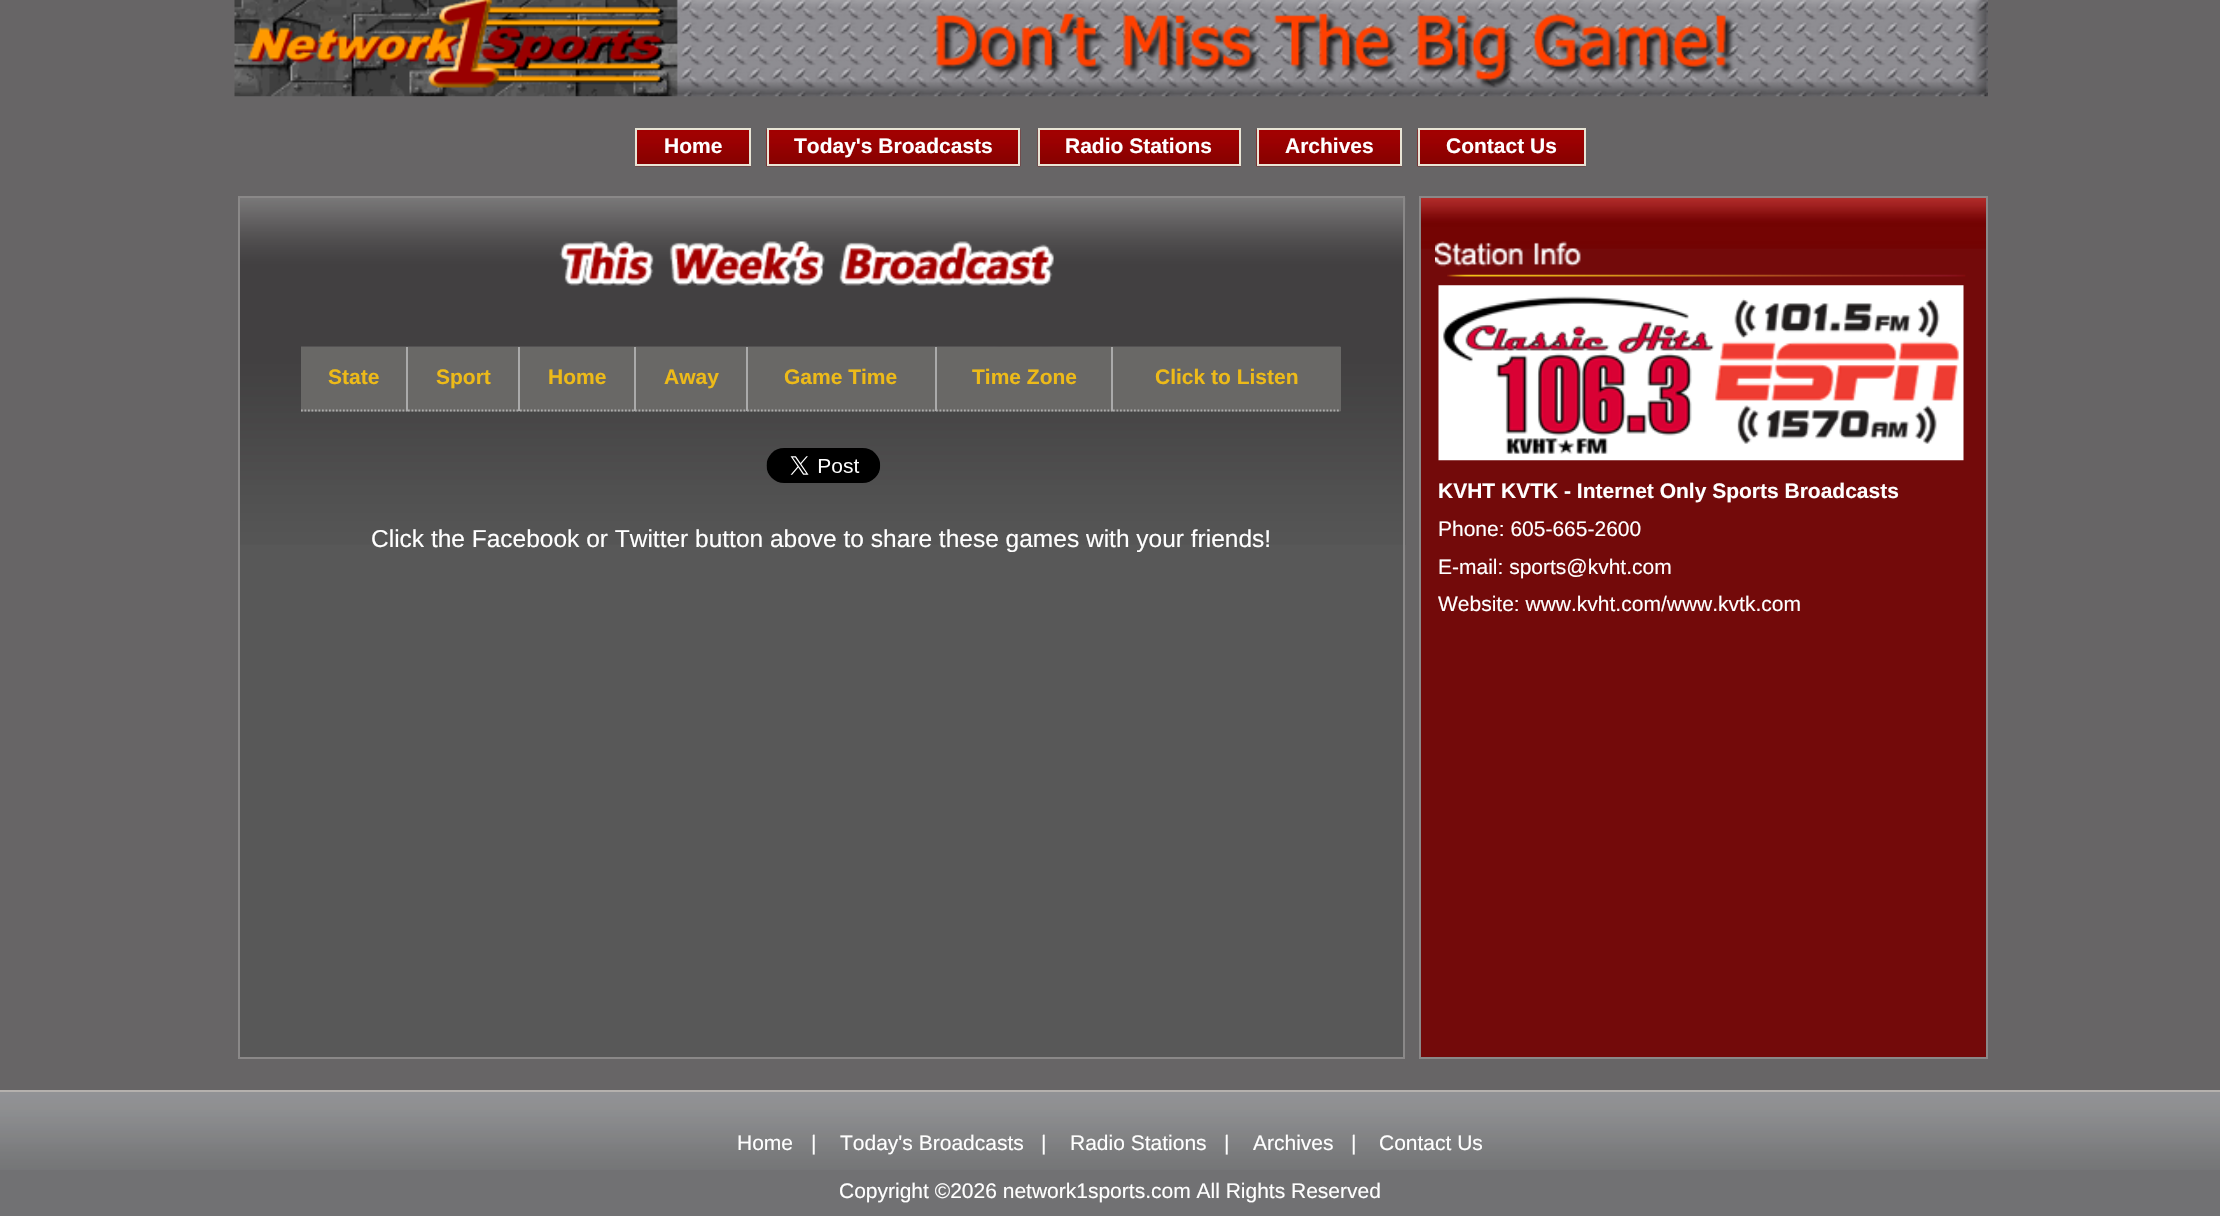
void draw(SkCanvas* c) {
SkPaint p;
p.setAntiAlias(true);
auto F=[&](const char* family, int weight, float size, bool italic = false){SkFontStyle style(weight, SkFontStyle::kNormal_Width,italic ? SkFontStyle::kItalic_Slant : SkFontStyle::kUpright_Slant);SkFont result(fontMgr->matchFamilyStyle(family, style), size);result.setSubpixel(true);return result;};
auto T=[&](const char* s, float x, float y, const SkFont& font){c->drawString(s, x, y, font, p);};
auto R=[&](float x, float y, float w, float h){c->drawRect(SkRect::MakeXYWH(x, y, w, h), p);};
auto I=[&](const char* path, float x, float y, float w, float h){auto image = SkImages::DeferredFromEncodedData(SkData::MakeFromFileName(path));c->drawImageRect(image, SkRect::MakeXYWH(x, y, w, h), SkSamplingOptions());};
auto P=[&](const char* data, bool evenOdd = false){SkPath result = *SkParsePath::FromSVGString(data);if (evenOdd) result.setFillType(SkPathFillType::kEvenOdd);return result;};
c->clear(0xff676566);
I("1.png",234,0,1754,97);
I("2.png",635,130,116,37);
I("3.png",766,129,255,38);
I("4.png",1037,129,204,38);
I("5.png",1256,129,146,38);
I("6.png",1417,129,169,38);
p.setStroke(true);
p.setStrokeWidth(2);
p.setColor(0xffe8e4d5);
c->drawRect(SkRect::MakeXYWH(636,129,114,36),p);
auto f1 = F("Liberation Sans",700,21);
p.setStroke(false);
p.setColor(0xffffffff);
T("Home",664,153,f1);
p.setStroke(true);
p.setColor(0xffe8e4d5);
c->drawRect(SkRect::MakeXYWH(768,129,251,36),p);
p.setStroke(false);
p.setColor(0xffffffff);
T("Today's Broadcasts",794,153,f1);
p.setStroke(true);
p.setColor(0xffe8e4d5);
c->drawRect(SkRect::MakeXYWH(1039,129,201,36),p);
p.setStroke(false);
p.setColor(0xffffffff);
T("Radio Stations",1065,153,f1);
p.setStroke(true);
p.setColor(0xffe8e4d5);
c->drawRect(SkRect::MakeXYWH(1258,129,143,36),p);
p.setStroke(false);
p.setColor(0xffffffff);
T("Archives",1285,153,f1);
p.setStroke(true);
p.setColor(0xffe8e4d5);
c->drawRect(SkRect::MakeXYWH(1419,129,166,36),p);
p.setStroke(false);
p.setColor(0xffffffff);
T("Contact Us",1446,153,f1);
p.setColor(0xff585858);
R(240,545,1163,512);
I("7.png",240,197,1166,348);
p.setStroke(true);
p.setColor(0xff8a8888);
c->drawRect(SkRect::MakeXYWH(239,197,1165,861),p);
I("8.png",559,241,495,45);
I("9.png",301,346,1040,66);
p.setStroke(false);
p.setColor(0xff696866);
R(301,347,1040,64);
p.setColor(0xffaaaaaa);
R(406,347,2,64);
p.setStroke(true);
p.setStrokeWidth(1.8);
p.setPathEffect(SkDashPathEffect::Make({{1.75f,1.75f}}, 0));
c->drawPath(P("M301 410.5h107"),p);
p.setPathEffect(nullptr);
p.setStroke(false);
p.setColor(0xffedba19);
T("State",328,384,f1);
p.setColor(0xffaaaaaa);
R(518,347,2,64);
p.setStroke(true);
p.setPathEffect(SkDashPathEffect::Make({{1.75f,1.75f}}, 0));
c->drawPath(P("M408 410.5h112"),p);
p.setPathEffect(nullptr);
p.setStroke(false);
p.setColor(0xffedba19);
T("Sport",436,384,f1);
p.setColor(0xffaaaaaa);
R(634,347,2,64);
p.setStroke(true);
p.setPathEffect(SkDashPathEffect::Make({{1.75f,1.75f}}, 0));
c->drawPath(P("M520 410.5h115"),p);
p.setPathEffect(nullptr);
p.setStroke(false);
p.setColor(0xffedba19);
T("Home",548,384,f1);
p.setColor(0xffaaaaaa);
R(746,347,2,64);
p.setStroke(true);
p.setPathEffect(SkDashPathEffect::Make({{1.75f,1.75f}}, 0));
c->drawPath(P("M635 410.5h112"),p);
p.setPathEffect(nullptr);
p.setStroke(false);
p.setColor(0xffedba19);
T("Away",664,384,f1);
p.setColor(0xffaaaaaa);
R(935,347,2,64);
p.setStroke(true);
p.setPathEffect(SkDashPathEffect::Make({{1.75f,1.75f}}, 0));
c->drawPath(P("M747 410.5h189"),p);
p.setPathEffect(nullptr);
p.setStroke(false);
p.setColor(0xffedba19);
T("Game Time",784,384,f1);
p.setColor(0xffaaaaaa);
R(1111,347,2,64);
p.setStroke(true);
p.setPathEffect(SkDashPathEffect::Make({{1.75f,1.75f}}, 0));
c->drawPath(P("M936 410.5h177"),p);
p.setPathEffect(nullptr);
p.setStroke(false);
p.setColor(0xffedba19);
T("Time Zone",972,384,f1);
p.setStroke(true);
p.setColor(0xffaaaaaa);
p.setPathEffect(SkDashPathEffect::Make({{1.75f,1.75f}}, 0));
c->drawPath(P("M1113 410.5h227.5"),p);
p.setPathEffect(nullptr);
p.setStroke(false);
p.setColor(0xffedba19);
T("Click to Listen",1155,384,f1);
I("10.png",766,448,115,35);
auto f2 = F("Liberation Sans",400,24.5);
p.setColor(0xffffffff);
T("Click the Facebook or Twitter button above to share these games with your friends!",371,547,f2);
p.setColor(0xff730a0a);
R(1421,249,565,808);
I("11.png",1421,198,565,51);
p.setStroke(true);
p.setStrokeWidth(2);
p.setColor(0xff8a8888);
c->drawRect(SkRect::MakeXYWH(1420,197,567,861),p);
I("12.png",1447,274,519,3);
I("13.png",1435,241,146,26);
I("14.png",1438,285,526,176);
p.setStroke(false);
p.setColor(0xffffffff);
T("KVHT KVTK - Internet Only Sports Broadcasts",1438,498,f1);
auto f3 = F("Liberation Sans",400,21);
T("Phone: 605-665-2600",1438,536,f3);
T("E-mail: sports@kvht.com",1438,574,f3);
T("Website: www.kvht.com/www.kvtk.com",1438,611,f3);
p.setColor(0xff717173);
R(0,1170,2220,46);
I("15.png",0,1092,2220,78);
p.setColor(0xffb5b1ae);
R(0,1090,2220,2);
p.setColor(0xffffffff);
T("Home",737,1150,f3);
T("|",811,1150,f3);
T("Today's Broadcasts",840,1150,f3);
T("|",1041,1150,f3);
T("Radio Stations",1070,1150,f3);
T("|",1224,1150,f3);
T("Archives",1253,1150,f3);
T("|",1351,1150,f3);
T("Contact Us",1379,1150,f3);
T("Copyright ©2026 network1sports.com All Rights Reserved",839,1198,f3);
}
